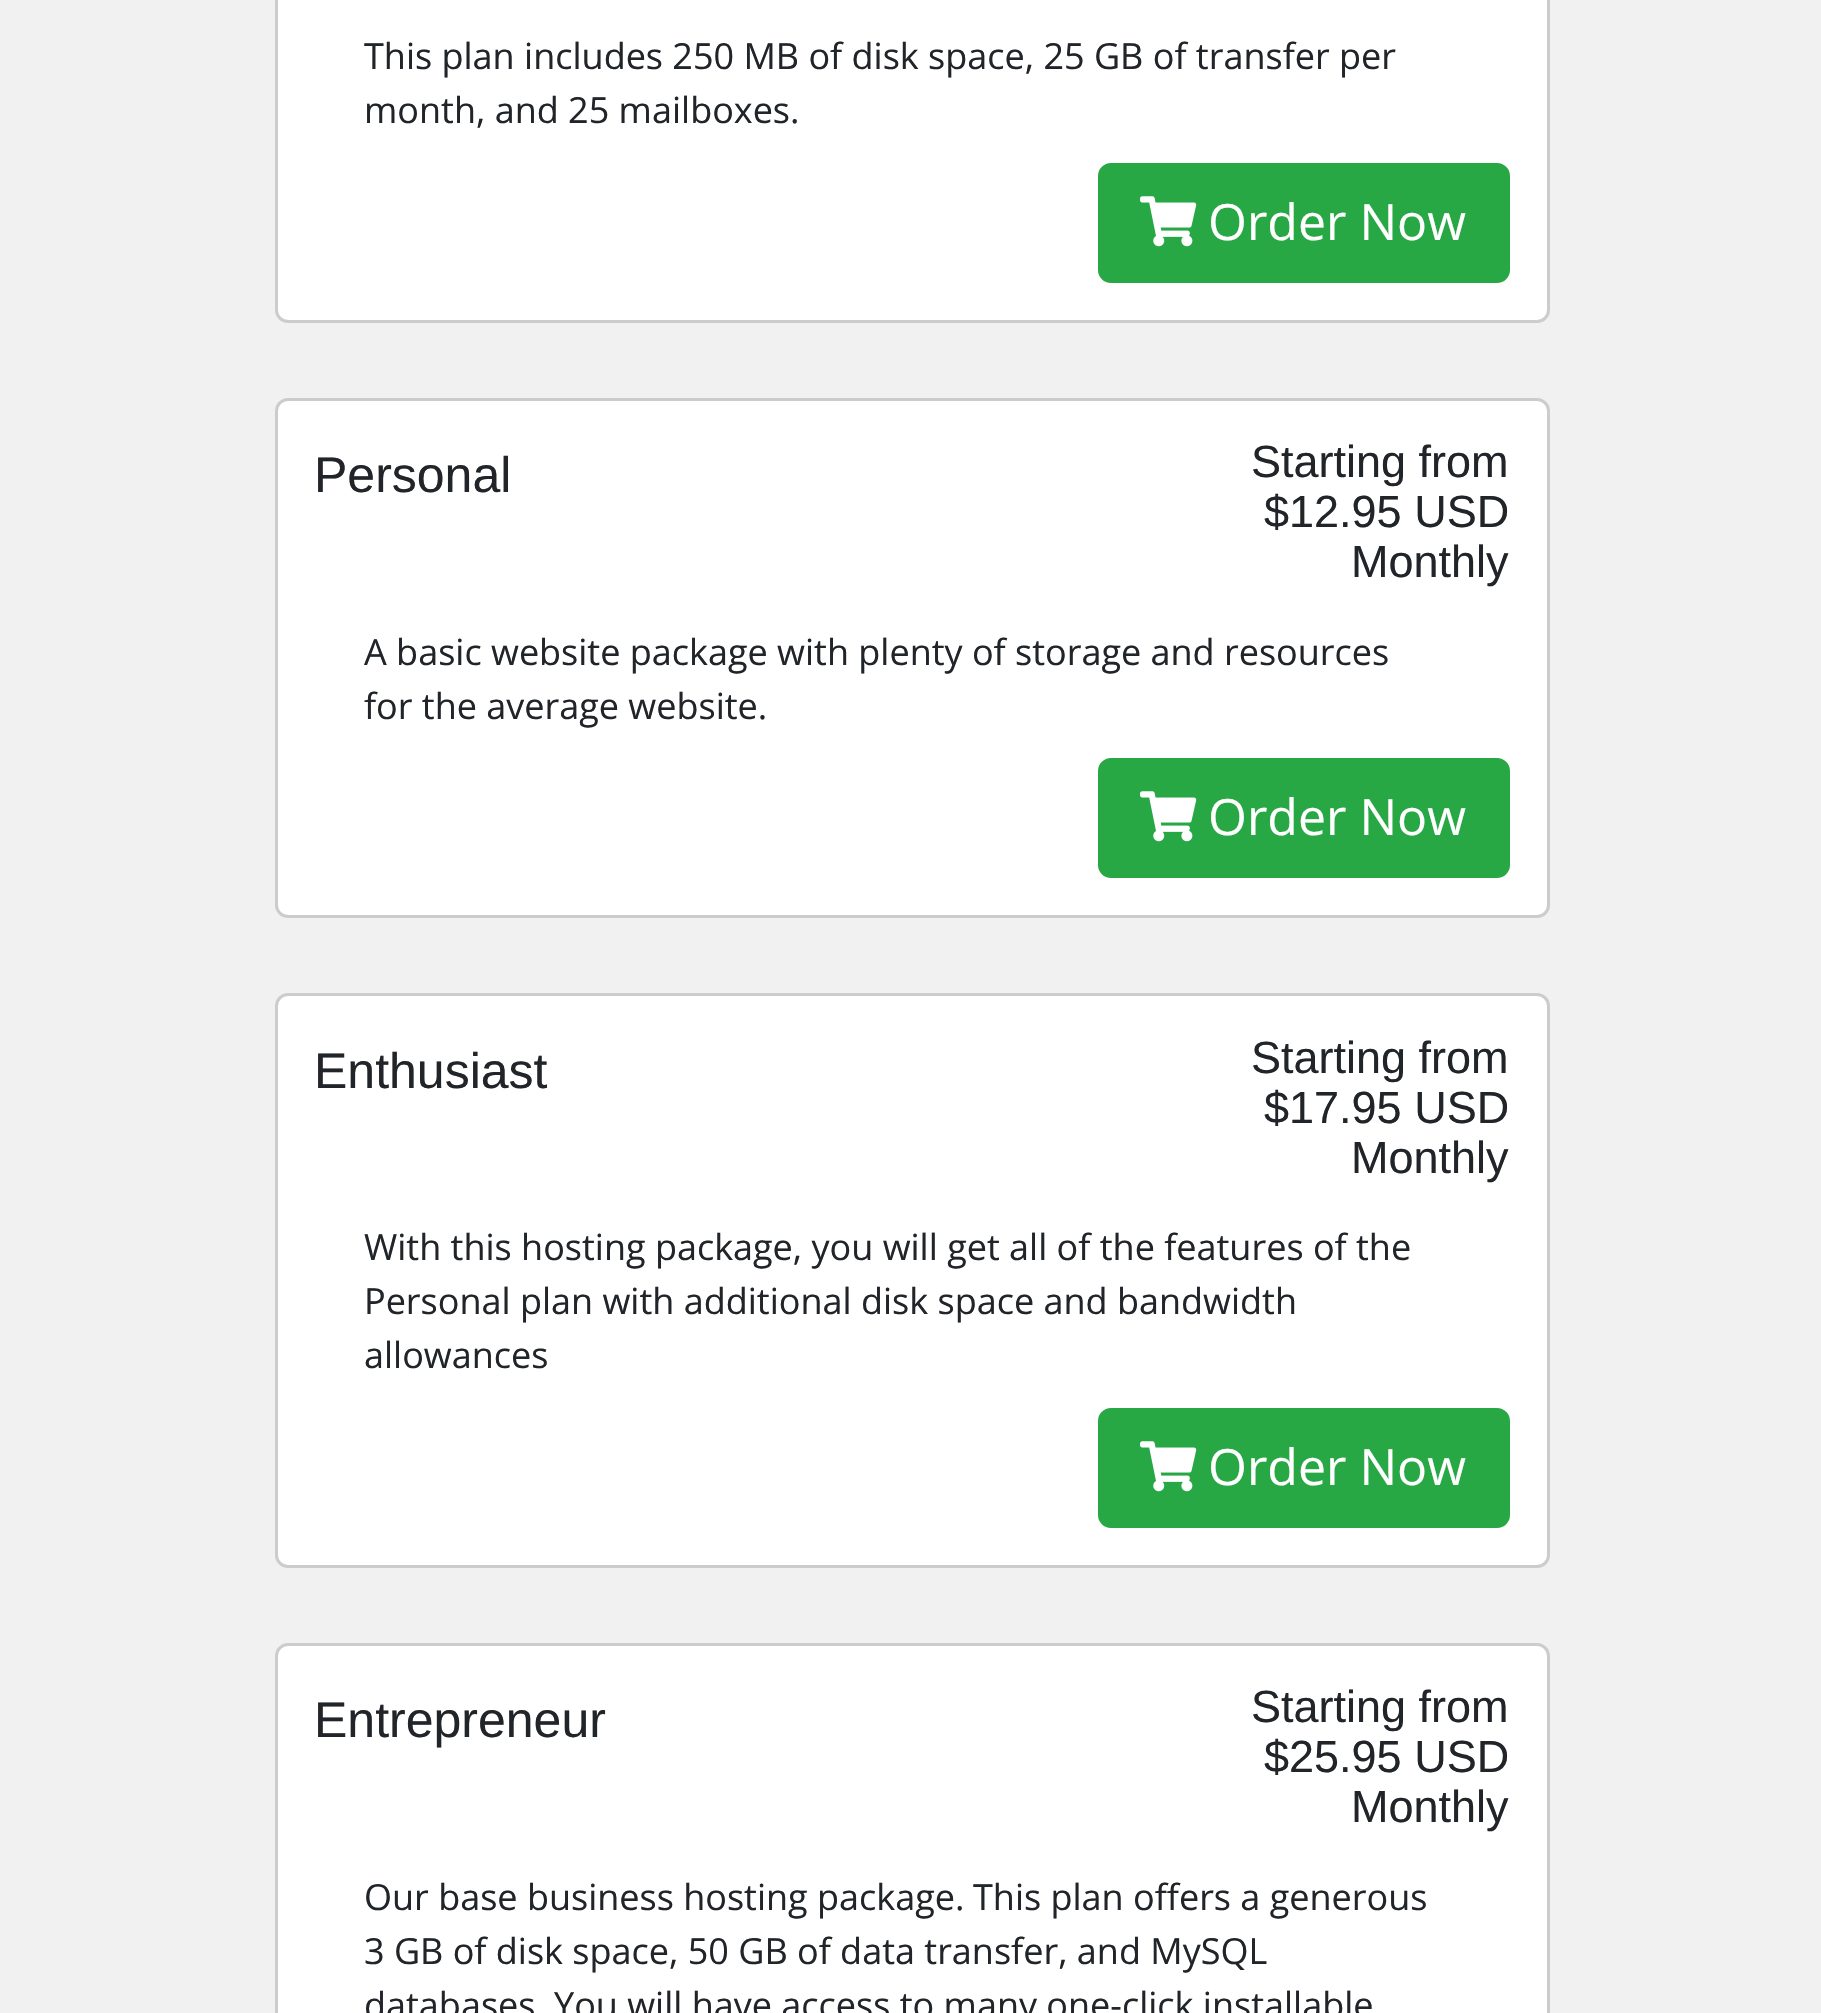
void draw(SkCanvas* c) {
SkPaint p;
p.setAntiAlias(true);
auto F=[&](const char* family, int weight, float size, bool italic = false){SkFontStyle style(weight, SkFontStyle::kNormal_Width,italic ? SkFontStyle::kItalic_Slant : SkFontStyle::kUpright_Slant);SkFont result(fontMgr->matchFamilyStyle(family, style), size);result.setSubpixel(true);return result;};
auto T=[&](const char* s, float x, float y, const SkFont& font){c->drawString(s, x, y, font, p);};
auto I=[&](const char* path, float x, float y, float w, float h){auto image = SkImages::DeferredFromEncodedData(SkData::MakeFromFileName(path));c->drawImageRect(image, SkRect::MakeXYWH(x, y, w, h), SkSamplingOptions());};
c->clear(0xfff1f1f1);
p.setColor(0xffffffff);
c->drawRoundRect(SkRect::MakeXYWH(276.5,-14.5,1272,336),11.5,11.5,p);
p.setStroke(true);
p.setStrokeWidth(3);
p.setColor(0xffcccccc);
c->drawRoundRect(SkRect::MakeXYWH(276.5,-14.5,1272,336),11.5,11.5,p);
auto f1 = F("Open Sans",400,36);
p.setStroke(false);
p.setColor(0xff212529);
T("This plan includes 250 MB of disk space, 25 GB of transfer per",364,69,f1);
T("month, and 25 mailboxes.",364,123,f1);
p.setColor(0xff28a745);
c->drawRoundRect(SkRect::MakeXYWH(1099.5,164.5,409,117),11.5,11.5,p);
p.setStroke(true);
c->drawRoundRect(SkRect::MakeXYWH(1099.5,164.5,409,117),11.5,11.5,p);
I("1.png",1140,196,57,51);
auto f2 = F("Open Sans",400,50);
p.setStroke(false);
p.setColor(0xffffffff);
T("Order Now",1208,240,f2);
c->drawRoundRect(SkRect::MakeXYWH(276.5,399.5,1272,517),11.5,11.5,p);
p.setStroke(true);
p.setColor(0xffcccccc);
c->drawRoundRect(SkRect::MakeXYWH(276.5,399.5,1272,517),11.5,11.5,p);
auto f3 = F("Liberation Sans",400,50);
p.setStroke(false);
p.setColor(0xff212529);
T("Personal",314,492,f3);
auto f4 = F("Liberation Sans",400,45);
T("Starting from",1251,477,f4);
T("$12.95 USD",1264,527,f4);
T("Monthly",1351,577,f4);
T("A basic website package with plenty of storage and resources",364,665,f1);
T("for the average website.",364,719,f1);
p.setColor(0xff28a745);
c->drawRoundRect(SkRect::MakeXYWH(1099.5,759.5,409,117),11.5,11.5,p);
p.setStroke(true);
c->drawRoundRect(SkRect::MakeXYWH(1099.5,759.5,409,117),11.5,11.5,p);
I("1.png",1140,791,57,51);
p.setStroke(false);
p.setColor(0xffffffff);
T("Order Now",1208,835,f2);
c->drawRoundRect(SkRect::MakeXYWH(276.5,994.5,1272,572),11.5,11.5,p);
p.setStroke(true);
p.setColor(0xffcccccc);
c->drawRoundRect(SkRect::MakeXYWH(276.5,994.5,1272,572),11.5,11.5,p);
p.setStroke(false);
p.setColor(0xff212529);
T("Enthusiast",314,1088,f3);
T("Starting from",1251,1073,f4);
T("$17.95 USD",1264,1123,f4);
T("Monthly",1351,1173,f4);
T("With this hosting package, you will get all of the features of the",364,1260,f1);
T("Personal plan with additional disk space and bandwidth",364,1314,f1);
T("allowances",364,1368,f1);
p.setColor(0xff28a745);
c->drawRoundRect(SkRect::MakeXYWH(1099.5,1409.5,409,117),11.5,11.5,p);
p.setStroke(true);
c->drawRoundRect(SkRect::MakeXYWH(1099.5,1409.5,409,117),11.5,11.5,p);
I("1.png",1140,1441,57,51);
p.setStroke(false);
p.setColor(0xffffffff);
T("Order Now",1208,1485,f2);
c->drawRoundRect(SkRect::MakeXYWH(276.5,1644.5,1272,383),11.5,11.5,p);
p.setStroke(true);
p.setColor(0xffcccccc);
c->drawRoundRect(SkRect::MakeXYWH(276.5,1644.5,1272,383),11.5,11.5,p);
p.setStroke(false);
p.setColor(0xff212529);
T("Entrepreneur",314,1737,f3);
T("Starting from",1251,1722,f4);
T("$25.95 USD",1264,1772,f4);
T("Monthly",1351,1822,f4);
T("Our base business hosting package.",364,1910,f1);
T("This plan offers a generous",973,1910,f1);
T("3 GB of disk space, 50 GB of data transfer, and MySQL",364,1964,f1);
T("databases",364,2018,f1);
T("You will have access to many one-click installable",554,2018,f1);
}
